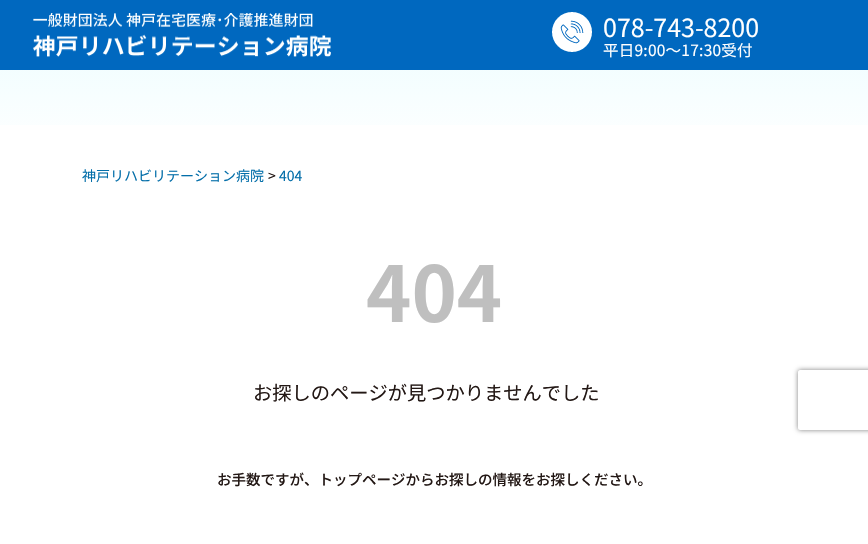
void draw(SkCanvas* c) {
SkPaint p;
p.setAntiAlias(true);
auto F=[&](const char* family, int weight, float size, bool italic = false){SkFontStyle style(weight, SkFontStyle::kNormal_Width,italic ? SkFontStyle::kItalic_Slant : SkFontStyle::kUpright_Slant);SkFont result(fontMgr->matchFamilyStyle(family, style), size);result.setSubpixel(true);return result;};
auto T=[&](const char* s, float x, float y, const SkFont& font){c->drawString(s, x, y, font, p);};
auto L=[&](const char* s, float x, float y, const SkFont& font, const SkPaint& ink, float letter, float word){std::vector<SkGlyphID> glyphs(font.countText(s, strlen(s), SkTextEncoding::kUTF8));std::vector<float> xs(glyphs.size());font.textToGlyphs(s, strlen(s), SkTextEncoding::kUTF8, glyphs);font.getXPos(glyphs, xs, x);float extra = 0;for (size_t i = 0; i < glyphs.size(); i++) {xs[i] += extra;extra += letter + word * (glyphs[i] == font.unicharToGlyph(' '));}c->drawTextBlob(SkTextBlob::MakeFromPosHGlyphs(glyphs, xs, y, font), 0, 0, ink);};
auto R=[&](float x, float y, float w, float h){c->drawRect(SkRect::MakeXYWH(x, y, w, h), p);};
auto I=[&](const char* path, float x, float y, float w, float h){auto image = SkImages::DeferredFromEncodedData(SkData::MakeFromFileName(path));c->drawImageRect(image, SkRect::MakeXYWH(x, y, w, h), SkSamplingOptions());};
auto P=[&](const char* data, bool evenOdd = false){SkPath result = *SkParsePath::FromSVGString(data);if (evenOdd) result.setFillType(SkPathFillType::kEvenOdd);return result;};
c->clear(0xffffffff);
I("1.png",0,70,868,55);
p.setColor(0xff0068bf);
R(0,0,868,70);
I("2.png",33,13,298,44);
I("3.png",552,12,40,40);
auto f1 = F("Noto Sans JP",400,25);
p.setColor(0xffffffff);
T("078-743-8200",603,37,f1);
auto f2 = F("Noto Sans JP",400,15.5);
L("平日9:00〜17:30受付",603,56,f2,p,.25,0);
auto f3 = F("Noto Sans JP",400,14);
p.setColor(0xff036ea9);
T("神戸リハビリテーション病院",82,181,f3);
p.setColor(0xff231815);
T(">",268,181,f3);
p.setColor(0xff036ea9);
T("404",279,181,f3);
auto f4 = F("Noto Sans JP",700,77);
p.setColor(0xffbfbfbf);
T("404",366,322,f4);
auto f5 = F("Noto Sans JP",400,19.25);
p.setColor(0xff231815);
T("お探しのページが見つかりませんでした",253,400,f5);
auto f6 = F("Noto Sans JP",500,14.5);
T("お手数ですが、トップページからお探しの情報をお探しください。",217,485,f6);
c->save();
c->clipPath(P("M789 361h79v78h-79zm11 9h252c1 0 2 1 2 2v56c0 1-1 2-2 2h-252c-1 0-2-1-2-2v-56c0-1 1-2 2-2z",true),true);
p.setColor(0xff808080);
p.setMaskFilter(SkMaskFilter::MakeBlur(kNormal_SkBlurStyle, 2.5));
c->drawRoundRect(SkRect::MakeXYWH(798,370,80,60),2,2,p);
p.setMaskFilter(nullptr);
c->restore();
}
